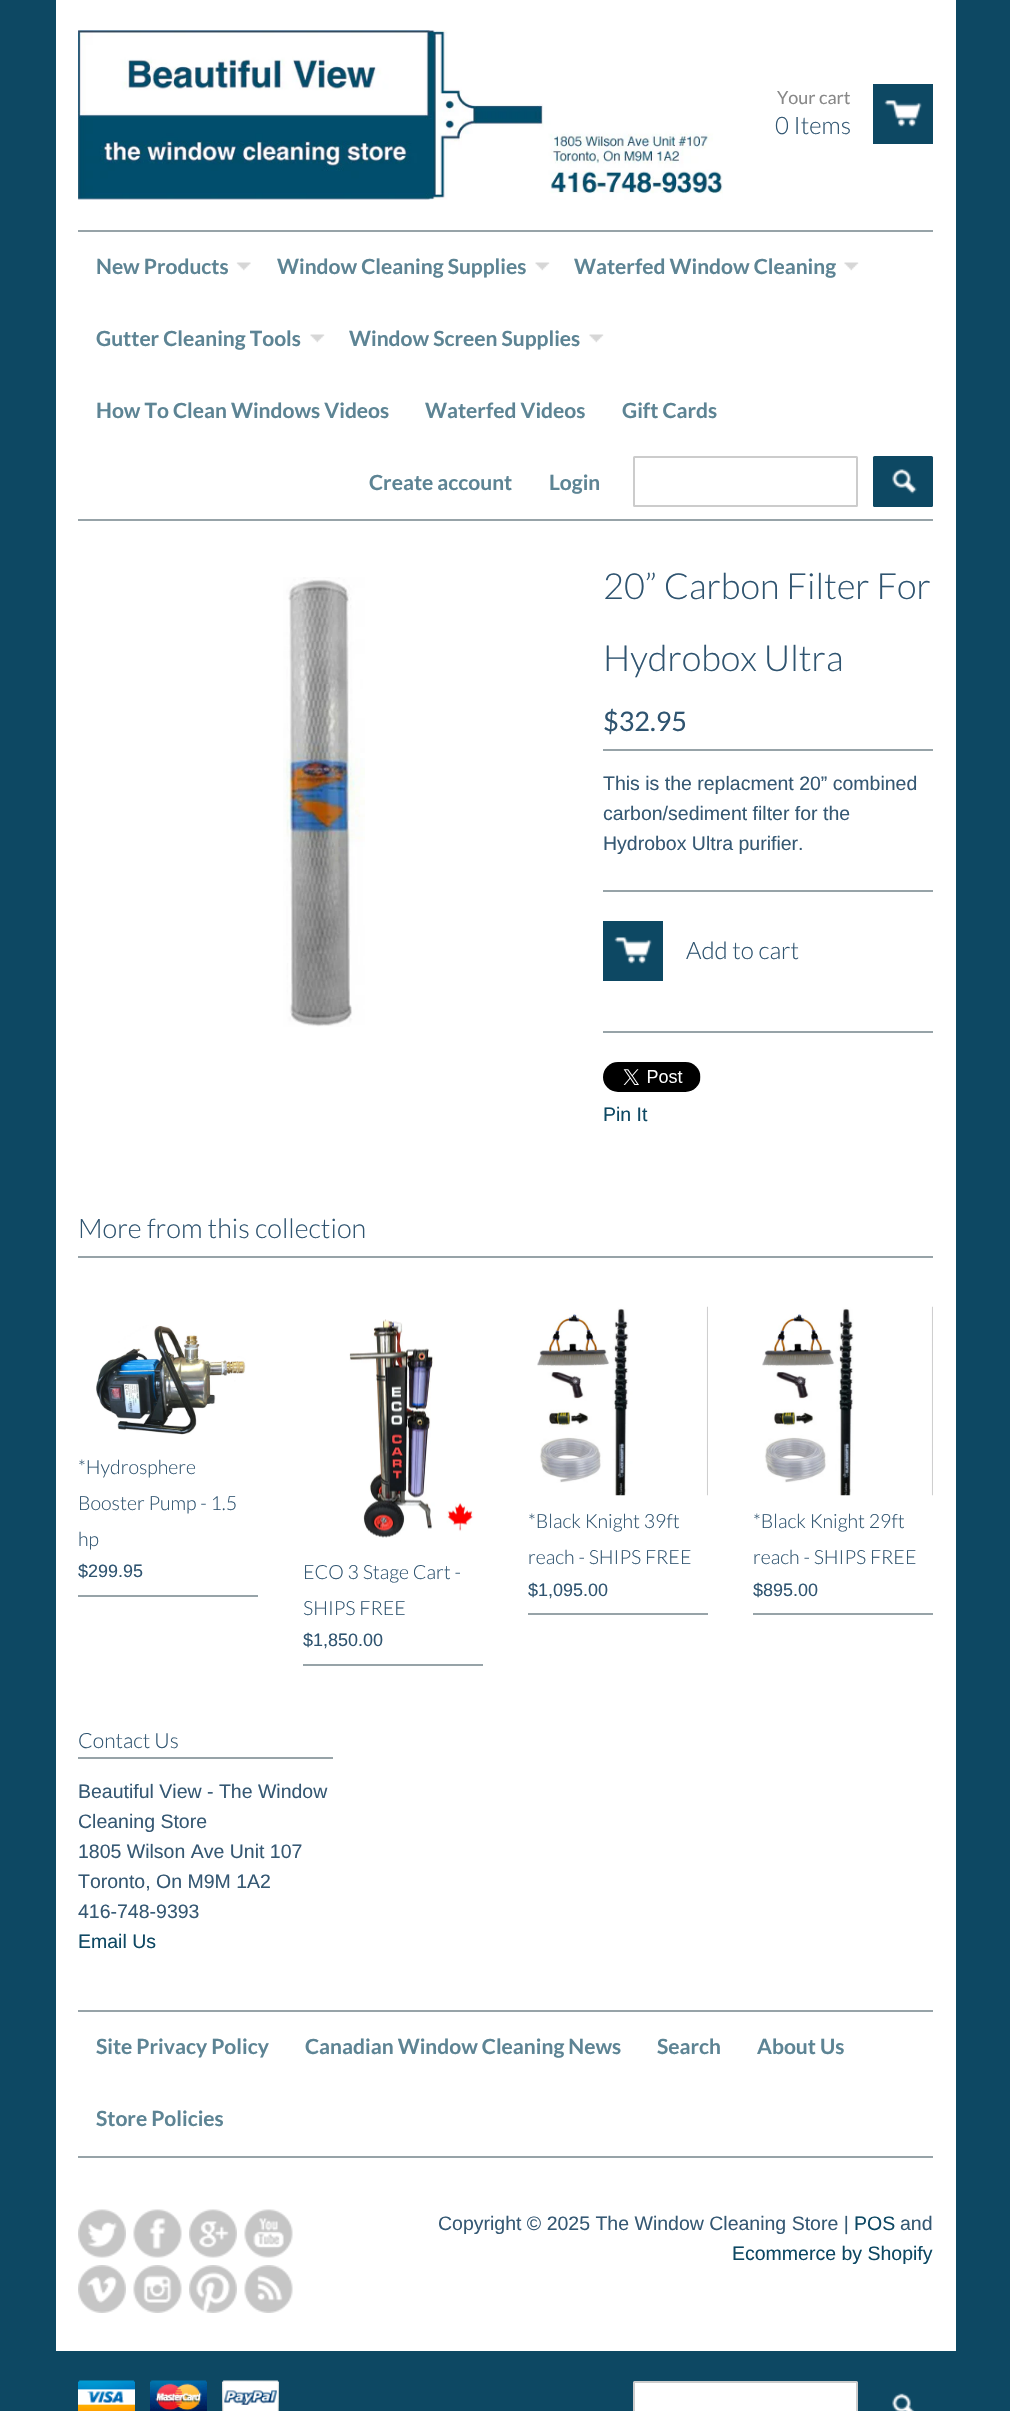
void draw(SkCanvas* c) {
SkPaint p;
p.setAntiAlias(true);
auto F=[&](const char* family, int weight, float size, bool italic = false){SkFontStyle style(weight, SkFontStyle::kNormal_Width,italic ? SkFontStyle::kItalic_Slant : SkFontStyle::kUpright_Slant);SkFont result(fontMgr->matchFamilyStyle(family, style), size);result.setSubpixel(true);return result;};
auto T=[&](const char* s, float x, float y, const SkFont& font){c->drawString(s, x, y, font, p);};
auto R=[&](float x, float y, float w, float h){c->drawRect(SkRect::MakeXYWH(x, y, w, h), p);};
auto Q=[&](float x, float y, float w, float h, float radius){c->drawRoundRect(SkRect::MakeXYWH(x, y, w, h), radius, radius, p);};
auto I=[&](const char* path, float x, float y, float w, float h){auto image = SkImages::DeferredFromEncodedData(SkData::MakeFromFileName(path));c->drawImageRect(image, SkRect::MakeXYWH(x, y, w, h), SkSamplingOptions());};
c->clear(0xff0d4863);
p.setColor(0xffffffff);
R(56,0,900,2351);
I("1.png",78,30,645,170);
auto f1 = F("Lato",400,18);
p.setColor(0xff888888);
T("Your cart",777,104,f1);
auto f2 = F("Lato",300,24);
p.setColor(0xff2f5470);
T("0 Items",775,134,f2);
p.setColor(0xff0d4863);
R(873,84,60,60);
I("2.png",884,100,38,27);
p.setColor(0xff97a3a8);
R(78,230,855,2);
R(78,519,855,2);
I("3.png",236,262,15,9);
auto f3 = F("Lato",700,21);
p.setColor(0xff5d8494);
T("New Products",96,274,f3);
I("4.png",535,262,15,9);
T("Window Cleaning Supplies",277,274,f3);
I("5.png",844,262,15,9);
T("Waterfed Window Cleaning",574,274,f3);
I("6.png",310,334,15,9);
T("Gutter Cleaning Tools",96,346,f3);
I("6.png",589,334,15,9);
T("Window Screen Supplies",349,346,f3);
T("How To Clean Windows Videos",96,418,f3);
T("Waterfed Videos",425,418,f3);
T("Gift Cards",622,418,f3);
T("Create account",369,490,f3);
T("Login",549,490,f3);
p.setStroke(true);
p.setStrokeWidth(2);
p.setColor(0xffcccccc);
c->drawRoundRect(SkRect::MakeXYWH(634,457,223,49),.5,.5,p);
p.setStroke(false);
p.setColor(0xff0d4863);
Q(873,456,60,51,1.5);
I("7.png",892,469,25,25);
I("8.png",283,577,82,450);
auto f4 = F("Lato",300,36);
p.setColor(0xff2f5470);
T("20” Carbon Filter For",603,599,f4);
T("Hydrobox Ultra",603,671,f4);
p.setColor(0xff97a3a8);
R(603,749,330,2);
auto f5 = F("Lato",400,27);
p.setColor(0xff2f5470);
T("$32.95",603,731,f5);
p.setColor(0xff97a3a8);
R(603,890,330,2);
auto f6 = F("Liberation Sans",400,19.5);
p.setColor(0xff355873);
T("This is the replacment 20” combined",603,790,f6);
T("carbon/sediment filter for the",603,820,f6);
T("Hydrobox Ultra purifier.",603,850,f6);
p.setColor(0xff0d4863);
R(603,921,60,60);
I("9.png",614,937,38,27);
p.setColor(0xff2f5470);
T("Add to cart",686,959,f2);
p.setColor(0xff97a3a8);
R(603,1031,330,2);
I("10.png",603,1062,98,30);
p.setColor(0xff0d4863);
T("Pin It",603,1121,f6);
p.setColor(0xff97a3a8);
R(78,1256,855,2);
auto f7 = F("Lato",300,27);
p.setColor(0xff2f5470);
T("More from this collection",78,1238,f7);
p.setColor(0xff97a3a8);
R(78,1595,180,2);
I("11.png",96,1325,150,110);
auto f8 = F("Lato",300,19.5);
p.setColor(0xff2f5470);
T("*Hydrosphere",78,1474,f8);
T("Booster Pump - 1.5",78,1510,f8);
T("hp",78,1546,f8);
auto f9 = F("Liberation Sans",400,18);
T("$299.95",78,1577,f9);
p.setColor(0xff97a3a8);
R(528,1613,180,2);
I("12.png",537,1306,171,190);
p.setColor(0xff2f5470);
T("*Black Knight 39ft",528,1528,f8);
T("reach - SHIPS FREE",528,1564,f8);
T("$1,095.00",528,1596,f9);
p.setColor(0xff97a3a8);
R(753,1613,180,2);
I("13.png",762,1306,171,190);
p.setColor(0xff2f5470);
T("*Black Knight 29ft",753,1528,f8);
T("reach - SHIPS FREE",753,1564,f8);
T("$895.00",753,1596,f9);
p.setColor(0xff97a3a8);
R(303,1664,180,2);
I("14.png",349,1319,125,219);
p.setColor(0xff2f5470);
T("ECO 3 Stage Cart -",303,1579,f8);
T("SHIPS FREE",303,1615,f8);
T("$1,850.00",303,1646,f9);
p.setColor(0xff97a3a8);
R(78,1757,255,2);
auto f10 = F("Lato",300,21);
p.setColor(0xff2f5470);
T("Contact Us",78,1748,f10);
p.setColor(0xff355873);
T("Beautiful View - The Window",78,1798,f6);
T("Cleaning Store",78,1828,f6);
T("1805 Wilson Ave Unit 107",78,1858,f6);
T("Toronto, On M9M 1A2",78,1888,f6);
T("416-748-9393",78,1918,f6);
p.setColor(0xff0d4863);
T("Email Us",78,1948,f6);
p.setColor(0xff97a3a8);
R(78,2010,855,2);
R(78,2156,855,2);
p.setColor(0xff5d8494);
T("Site Privacy Policy",96,2054,f3);
T("Canadian Window Cleaning News",305,2054,f3);
T("Search",657,2054,f3);
T("About Us",757,2054,f3);
T("Store Policies",96,2126,f3);
I("15.png",78,2209,48,49);
I("16.png",133,2209,49,49);
I("17.png",189,2209,48,49);
I("18.png",244,2209,49,49);
I("19.png",78,2265,48,48);
I("20.png",133,2265,49,48);
I("21.png",189,2265,48,48);
I("22.png",244,2265,49,48);
p.setColor(0xff355873);
T("Copyright © 2025 The Window Cleaning Store |",438,2230,f6);
p.setColor(0xff0d4863);
T("POS",854,2230,f6);
p.setColor(0xff355873);
T("and",900,2230,f6);
p.setColor(0xff0d4863);
T("Ecommerce by Shopify",732,2260,f6);
I("23.png",78,2380,57,31);
I("24.png",150,2380,57,31);
I("25.png",222,2380,57,31);
p.setColor(0xffffffff);
c->drawRoundRect(SkRect::MakeXYWH(634,2382,223,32),.5,.5,p);
p.setStroke(true);
p.setColor(0xffcccccc);
c->drawRoundRect(SkRect::MakeXYWH(634,2382,223,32),.5,.5,p);
I("26.png",892,2393,23,18);
}
